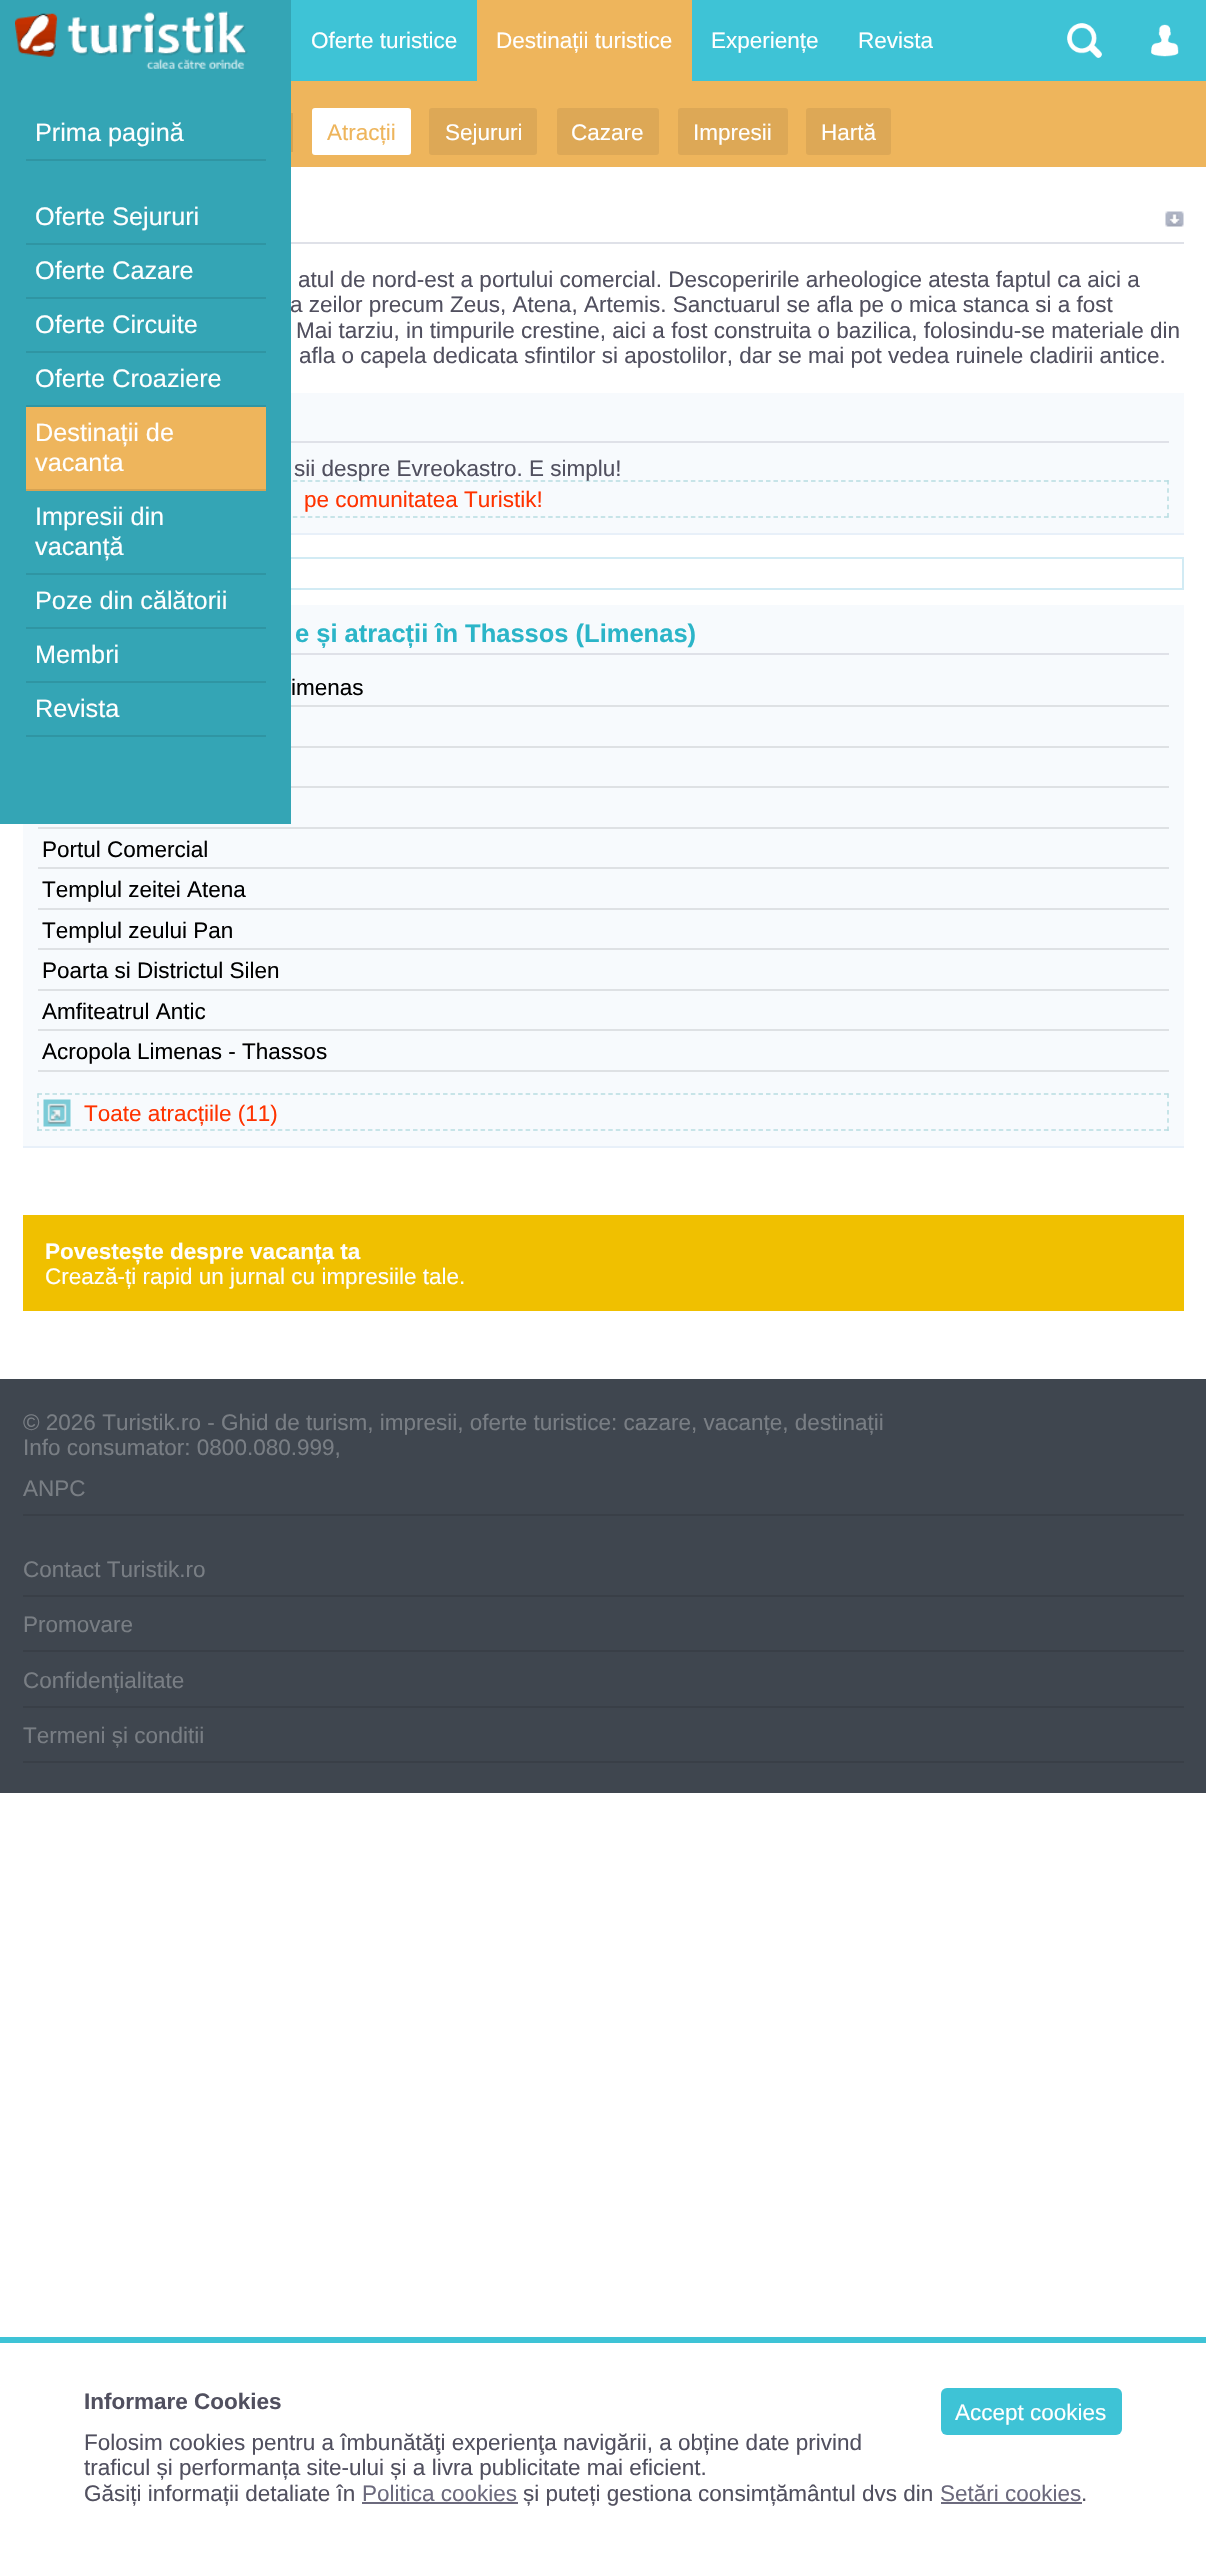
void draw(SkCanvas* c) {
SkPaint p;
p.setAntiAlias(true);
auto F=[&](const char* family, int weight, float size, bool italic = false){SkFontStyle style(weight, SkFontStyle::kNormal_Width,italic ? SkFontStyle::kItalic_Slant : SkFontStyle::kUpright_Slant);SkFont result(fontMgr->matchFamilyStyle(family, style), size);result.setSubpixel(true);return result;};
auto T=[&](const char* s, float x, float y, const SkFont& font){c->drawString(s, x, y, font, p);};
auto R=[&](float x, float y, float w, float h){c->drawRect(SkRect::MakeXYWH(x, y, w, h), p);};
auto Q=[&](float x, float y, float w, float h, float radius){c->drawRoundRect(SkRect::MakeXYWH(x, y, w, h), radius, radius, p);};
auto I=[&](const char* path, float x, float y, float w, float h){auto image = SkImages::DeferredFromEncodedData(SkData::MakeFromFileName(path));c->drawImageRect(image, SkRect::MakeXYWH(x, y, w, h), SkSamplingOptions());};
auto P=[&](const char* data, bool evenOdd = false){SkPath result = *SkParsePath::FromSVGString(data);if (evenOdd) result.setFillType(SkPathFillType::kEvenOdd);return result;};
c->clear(0xffffffff);
p.setColor(0xff3ec3d6);
R(291,0,915,81);
auto f1 = F("Liberation Sans",400,22.5);
p.setColor(0xffffffff);
T("Oferte turistice",311,48,f1);
p.setColor(0xffeeb55c);
R(477,0,215,81);
p.setColor(0xffffffff);
T("Destinații turistice",496,48,f1);
T("Experiențe",711,48,f1);
T("Revista",858,48,f1);
I("1.png",1067,23,35,35);
I("2.png",1151,24,28,33);
p.setColor(0xfff7fafd);
R(291,393,893,140);
p.setStroke(true);
p.setStrokeWidth(1.5);
p.setColor(0xffb8dde2);
p.setPathEffect(SkDashPathEffect::Make({{4.5f,3.01f}}, 0));
c->drawPath(P("M37.5 481h1131"),p);
p.setPathEffect(nullptr);
p.setPathEffect(SkDashPathEffect::Make({{4.5f,3.75f}}, 0));
c->drawPath(P("M1168 480v37.5"),p);
p.setPathEffect(nullptr);
p.setPathEffect(SkDashPathEffect::Make({{4.5f,3.01f}}, 0));
c->drawPath(P("M37.5 517h1131"),p);
p.setPathEffect(nullptr);
p.setStrokeWidth(2);
p.setColor(0xffd2ebf4);
c->drawRect(SkRect::MakeXYWH(24,558,1159,31),p);
p.setStroke(false);
p.setColor(0xfff7fafd);
R(23,605,1161,541);
p.setColor(0xff34a5b5);
R(0,0,291,824);
I("3.png",15,11,233,58);
p.setColor(0xff2f95a3);
R(26,159,240,2);
auto f2 = F("Liberation Sans",400,25.25);
p.setColor(0xffffffff);
T("Prima pagină",35,141,f2);
p.setColor(0xff2f95a3);
R(26,243,240,2);
p.setColor(0xffffffff);
T("Oferte Sejururi",35,225,f2);
p.setColor(0xff2f95a3);
R(26,297,240,2);
p.setColor(0xffffffff);
T("Oferte Cazare",35,279,f2);
p.setColor(0xff2f95a3);
R(26,351,240,2);
p.setColor(0xffffffff);
T("Oferte Circuite",35,333,f2);
p.setColor(0xff2f95a3);
R(26,405,240,2);
p.setColor(0xffffffff);
T("Oferte Croaziere",35,387,f2);
p.setColor(0xffeeb55c);
R(26,407,240,82);
p.setColor(0xffd6a353);
R(26,489,240,2);
p.setColor(0xffffffff);
T("Destinații de",35,441,f2);
T("vacanta",35,471,f2);
p.setColor(0xff2f95a3);
R(26,573,240,2);
p.setColor(0xffffffff);
T("Impresii din",35,525,f2);
T("vacanță",35,555,f2);
p.setColor(0xff2f95a3);
R(26,627,240,2);
p.setColor(0xffffffff);
T("Poze din călătorii",35,609,f2);
p.setColor(0xff2f95a3);
R(26,681,240,2);
p.setColor(0xffffffff);
T("Membri",35,663,f2);
p.setColor(0xff2f95a3);
R(26,735,240,2);
p.setColor(0xffffffff);
T("Revista",35,717,f2);
p.setColor(0xffeeb55c);
R(291,81,915,86);
p.setColor(0xffd6a353);
R(291,113,2,39);
p.setColor(0xffffffff);
Q(312,108,99,47,3);
p.setColor(0xffeeb55c);
T("Atracții",327,140,f1);
p.setColor(0xffdda856);
Q(429,108,108,47,3);
p.setColor(0xffffffff);
T("Sejururi",445,140,f1);
p.setColor(0xffdda856);
Q(557,108,102,47,3);
p.setColor(0xffffffff);
T("Cazare",571,140,f1);
p.setColor(0xffdda856);
Q(678,108,110,47,3);
p.setColor(0xffffffff);
T("Impresii",693,140,f1);
p.setColor(0xffdda856);
Q(806,108,85,47,3);
p.setColor(0xffffffff);
T("Hartă",821,140,f1);
I("4.png",1165,211,19,16);
p.setColor(0xffdfe1e8);
R(291,242,893,2);
p.setColor(0xff51505f);
T("atul de nord-est a portului comercial. Descoperirile arheologice atesta faptul ca aici a",298,287,f1);
T("a zeilor precum Zeus, Atena, Artemis. Sanctuarul se afla pe o mica stanca si a fost",290,312,f1);
T("Mai tarziu, in timpurile crestine, aici a fost construita o bazilica, folosindu-se materiale din",296,338,f1);
T("afla o capela dedicata sfintilor si apostolilor, dar se mai pot vedea ruinele cladirii antice.",299,363,f1);
p.setColor(0xffe8f0f9);
R(291,533,893,2);
p.setColor(0xffdfe1e8);
R(291,441,878,2);
p.setColor(0xff51505f);
T("sii despre Evreokastro. E simplu!",294,476,f1);
p.setColor(0xffff3300);
T("pe comunitatea Turistik!",304,507,f1);
p.setColor(0xffe8f0f9);
R(23,1146,1161,2);
p.setColor(0xffdfe1e8);
R(291,653,878,2);
auto f3 = F("Liberation Sans",700,25.5);
p.setColor(0xff2bb5c8);
T("e și atracții în Thassos (Limenas)",295,642,f3);
p.setColor(0xffdee1e4);
R(291,705,878,2);
p.setColor(0xff000000);
T("imenas",291,695,f1);
p.setColor(0xffdee1e4);
R(291,746,878,2);
R(291,786,878,2);
R(38,827,1131,2);
R(38,867,1131,2);
p.setColor(0xff000000);
T("Portul Comercial",42,857,f1);
p.setColor(0xffdee1e4);
R(38,908,1131,2);
p.setColor(0xff000000);
T("Templul zeitei Atena",42,897,f1);
p.setColor(0xffdee1e4);
R(38,948,1131,2);
p.setColor(0xff000000);
T("Templul zeului Pan",42,938,f1);
p.setColor(0xffdee1e4);
R(38,989,1131,2);
p.setColor(0xff000000);
T("Poarta si Districtul Silen",42,978,f1);
p.setColor(0xffdee1e4);
R(38,1029,1131,2);
p.setColor(0xff000000);
T("Amfiteatrul Antic",42,1019,f1);
p.setColor(0xffdee1e4);
R(38,1070,1131,2);
p.setColor(0xff000000);
T("Acropola Limenas - Thassos",42,1059,f1);
I("5.png",43,1099,28,28);
p.setStroke(true);
p.setStrokeWidth(1.5);
p.setColor(0xffb8dde2);
p.setPathEffect(SkDashPathEffect::Make({{4.5f,3.01f}}, 0));
c->drawPath(P("M37.5 1094h1131"),p);
p.setPathEffect(nullptr);
p.setPathEffect(SkDashPathEffect::Make({{4.5f,3.75f}}, 0));
c->drawPath(P("M1168 1093.5v37.5"),p);
p.setPathEffect(nullptr);
p.setPathEffect(SkDashPathEffect::Make({{4.5f,3.01f}}, 0));
c->drawPath(P("M37.5 1130h1131"),p);
p.setPathEffect(nullptr);
p.setPathEffect(SkDashPathEffect::Make({{4.5f,3.75f}}, 0));
c->drawPath(P("M38 1093.5v37.5"),p);
p.setPathEffect(nullptr);
p.setStroke(false);
p.setColor(0xffff3300);
T("Toate atracțiile (11)",84,1121,f1);
p.setColor(0xfff0c000);
R(23,1215,1161,96);
auto f4 = F("Liberation Sans",700,22.5);
p.setColor(0xffffffff);
T("Povestește despre vacanța ta",45,1259,f4);
T("Crează-ți rapid un jurnal cu impresiile tale.",45,1284,f1);
p.setColor(0xff3f464f);
R(0,1379,1206,414);
p.setColor(0xff797e84);
T("© 2026 Turistik.ro - Ghid de turism, impresii, oferte turistice: cazare, vacanțe, destinații",23,1430,f1);
T("Info consumator: 0800.080.999,",23,1455,f1);
p.setColor(0xff393f47);
R(23,1514,1161,2);
p.setColor(0xff797e84);
T("ANPC",23,1496,f1);
p.setColor(0xff393f47);
R(23,1595,1161,2);
p.setColor(0xff797e84);
T("Contact Turistik.ro",23,1577,f1);
p.setColor(0xff393f47);
R(23,1650,1161,2);
p.setColor(0xff797e84);
T("Promovare",23,1632,f1);
p.setColor(0xff393f47);
R(23,1706,1161,2);
p.setColor(0xff797e84);
T("Confidențialitate",23,1688,f1);
p.setColor(0xff393f47);
R(23,1761,1161,2);
p.setColor(0xff797e84);
T("Termeni și conditii",23,1743,f1);
p.setColor(0xff3ec3d6);
R(0,2337,1206,6);
p.setColor(0xff51505f);
T("Informare Cookies",84,2409,f4);
p.setColor(0xff3ec3d6);
Q(941,2388,181,47,6);
p.setColor(0xffffffff);
T("Accept cookies",955,2420,f1);
p.setColor(0xff51505f);
T("Folosim cookies pentru a îmbunătăţi experienţa navigării, a obține date privind",84,2450,f1);
T("traficul și performanța site-ului și a livra publicitate mai eficient.",84,2475,f1);
T("Găsiți informații detaliate în",84,2501,f1);
p.setColor(0xff6c6a7d);
T("Politica cookies",362,2501,f1);
R(362,2502,156,2);
p.setColor(0xff51505f);
T("și puteți gestiona consimțământul dvs din",523,2501,f1);
p.setColor(0xff6c6a7d);
T("Setări cookies",940,2501,f1);
R(941,2502,141,2);
p.setColor(0xff51505f);
T(".",1081,2501,f1);
}
